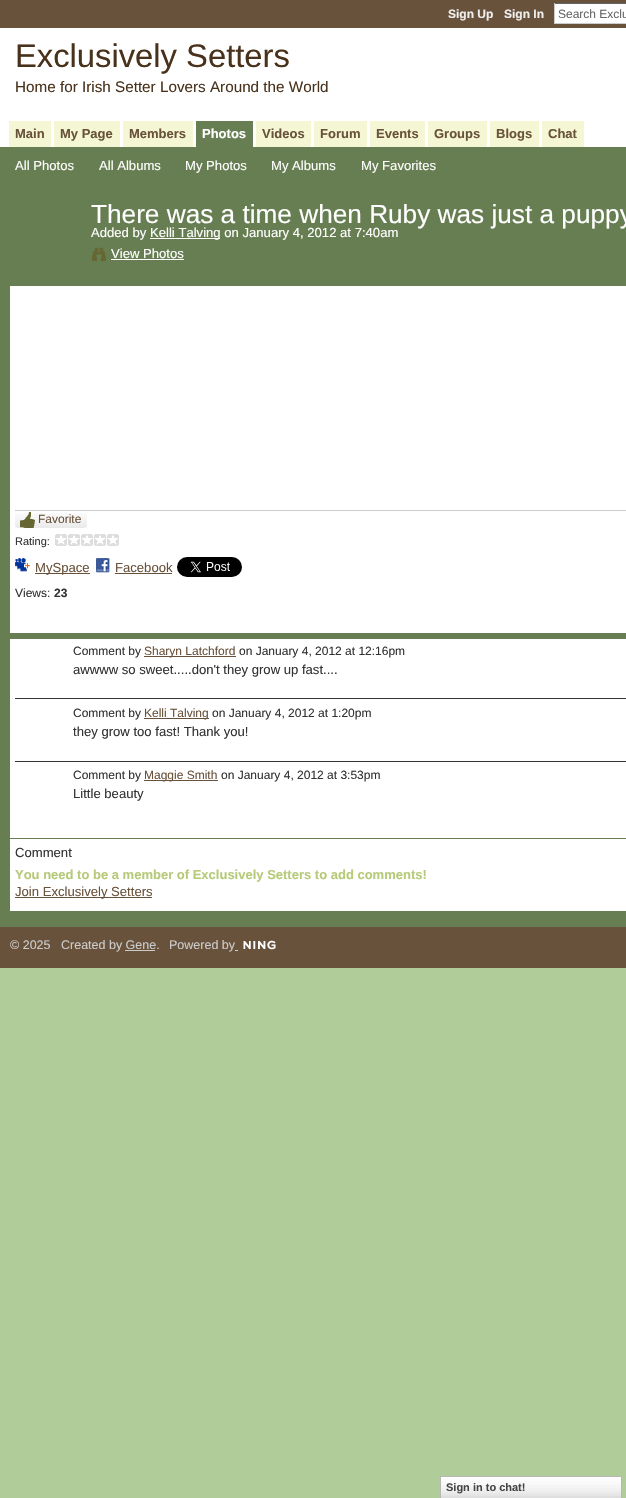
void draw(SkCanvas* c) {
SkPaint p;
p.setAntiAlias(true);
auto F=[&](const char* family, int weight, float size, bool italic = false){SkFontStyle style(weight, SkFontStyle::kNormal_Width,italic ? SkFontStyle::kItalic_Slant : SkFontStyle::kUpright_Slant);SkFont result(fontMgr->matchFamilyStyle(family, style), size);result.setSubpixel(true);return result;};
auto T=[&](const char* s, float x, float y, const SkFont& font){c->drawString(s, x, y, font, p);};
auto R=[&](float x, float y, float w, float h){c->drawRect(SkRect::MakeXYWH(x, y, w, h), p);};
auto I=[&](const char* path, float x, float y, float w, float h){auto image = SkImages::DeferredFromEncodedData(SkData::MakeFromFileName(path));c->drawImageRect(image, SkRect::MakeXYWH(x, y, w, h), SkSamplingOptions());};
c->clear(0xffafcc99);
p.setColor(0xff69523b);
R(0,0,626,28);
auto f1 = F("Liberation Sans",700,12);
p.setColor(0xffeeeeee);
T("Sign Up",448,18,f1);
T("Sign In",504,18,f1);
p.setColor(0xffffffff);
R(555,4,71,19);
p.setColor(0xff666666);
R(554,3,72,1);
p.setColor(0xffcccccc);
R(554,23,72,1);
R(554,3,1,21);
auto f2 = F("Liberation Sans",400,12);
p.setColor(0xff666666);
T("Search Exclu",558,18,f2);
p.setColor(0xffffffff);
R(0,28,626,119);
auto f3 = F("Liberation Sans",400,32.75);
p.setColor(0xff49321b);
T("Exclusively Setters",15,67,f3);
auto f4 = F("Liberation Sans",400,15.25);
T("Home for Irish Setter Lovers Around the World",15,92,f4);
p.setColor(0xfff4f6d4);
R(9,121,42,26);
auto f5 = F("Liberation Sans",700,13);
p.setColor(0xff69523b);
T("Main",15,138,f5);
p.setColor(0xfff4f6d4);
R(54,121,66,26);
p.setColor(0xff69523b);
T("My Page",60,138,f5);
p.setColor(0xfff4f6d4);
R(123,121,70,26);
p.setColor(0xff69523b);
T("Members",129,138,f5);
p.setColor(0xff677e52);
R(196,121,57,26);
p.setColor(0xffffffff);
T("Photos",202,138,f5);
p.setColor(0xfff4f6d4);
R(256,121,55,26);
p.setColor(0xff69523b);
T("Videos",262,138,f5);
p.setColor(0xfff4f6d4);
R(314,121,53,26);
p.setColor(0xff69523b);
T("Forum",320,138,f5);
p.setColor(0xfff4f6d4);
R(370,121,55,26);
p.setColor(0xff69523b);
T("Events",376,138,f5);
p.setColor(0xfff4f6d4);
R(428,121,59,26);
p.setColor(0xff69523b);
T("Groups",434,138,f5);
p.setColor(0xfff4f6d4);
R(490,121,49,26);
p.setColor(0xff69523b);
T("Blogs",496,138,f5);
p.setColor(0xfff4f6d4);
R(542,121,42,26);
p.setColor(0xff69523b);
T("Chat",548,138,f5);
p.setColor(0xff677e52);
R(0,147,626,780);
auto f6 = F("Liberation Sans",400,13.1);
p.setColor(0xffffffff);
T("All Photos",15,170,f6);
T("All Albums",99,170,f6);
T("My Photos",185,170,f6);
T("My Albums",271,170,f6);
T("My Favorites",361,170,f6);
auto f7 = F("Liberation Sans",400,26.2);
T("There was a time when Ruby was just a puppy",91,223,f7);
T("Added by",91,237,f6);
R(150,238,70,1);
T("Kelli Talving on January 4, 2012 at 7:40am",150,237,f6);
I("1.png",92,247,14,14);
T("View Photos",111,258,f6);
R(111,259,73,1);
R(10,286,616,347);
p.setColor(0xffcccccc);
R(15,510,611,1);
I("2.png",15,513,72,15);
I("3.png",20,512,15,16);
p.setColor(0xff69523b);
T("Favorite",38,523,f2);
auto f8 = F("Liberation Sans",400,11);
p.setColor(0xff333333);
T("Rating:",15,545,f8);
I("4.png",55,534,64,12);
I("5.png",15,558,15,14);
p.setColor(0xff69523b);
R(35,573,55,1);
T("MySpace",35,572,f6);
I("6.png",96,558,14,15);
T("Facebook",115,572,f6);
R(115,573,57,1);
I("7.png",177,557,65,20);
p.setColor(0xff333333);
T("Views:",15,597,f2);
T("23",54,597,f1);
p.setColor(0xffffffff);
R(10,639,616,199);
p.setColor(0xff333333);
R(15,698,611,1);
T("Comment by",73,655,f2);
p.setColor(0xff69523b);
R(144,656,92,1);
T("Sharyn Latchford",144,655,f2);
p.setColor(0xff333333);
T("on January 4, 2012 at 12:16pm",239,655,f2);
T("awwww so sweet.....don't they grow up fast....",73,674,f6);
R(15,761,611,1);
T("Comment by",73,717,f2);
p.setColor(0xff69523b);
R(144,718,65,1);
T("Kelli Talving",144,717,f2);
p.setColor(0xff333333);
T("on January 4, 2012 at 1:20pm",212,717,f2);
T("they grow too fast! Thank you!",73,736,f6);
T("Comment by",73,779,f2);
p.setColor(0xff69523b);
R(144,780,74,1);
T("Maggie Smith",144,779,f2);
p.setColor(0xff333333);
T("on January 4, 2012 at 3:53pm",221,779,f2);
T("Little beauty",73,798,f6);
p.setColor(0xffffffff);
R(10,839,616,72);
p.setColor(0xff333333);
T("Comment",15,857,f6);
p.setColor(0xffb6ca79);
T("You need to be a member of Exclusively Setters to add comments!",15,879,f5);
p.setColor(0xff69523b);
R(15,897,137,1);
T("Join Exclusively Setters",15,896,f6);
R(0,927,626,41);
auto f9 = F("Liberation Sans",400,12.5);
p.setColor(0xffcccccc);
T("© 2025",10,949,f9);
T("Created by Gene.",61,949,f9);
T("Powered by",169,949,f9);
I("8.png",243,940,33,10);
R(125,950,30,1);
R(235,950,3,1);
I("9.png",441,1477,180,21);
p.setStroke(true);
p.setStrokeWidth(1);
p.setColor(0xffb7b7b7);
c->drawRect(SkRect::MakeXYWH(440.5,1476.5,181,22),p);
auto f10 = F("Liberation Sans",700,11);
p.setStroke(false);
p.setColor(0xff454545);
T("Sign in to chat!",446,1491,f10);
}
